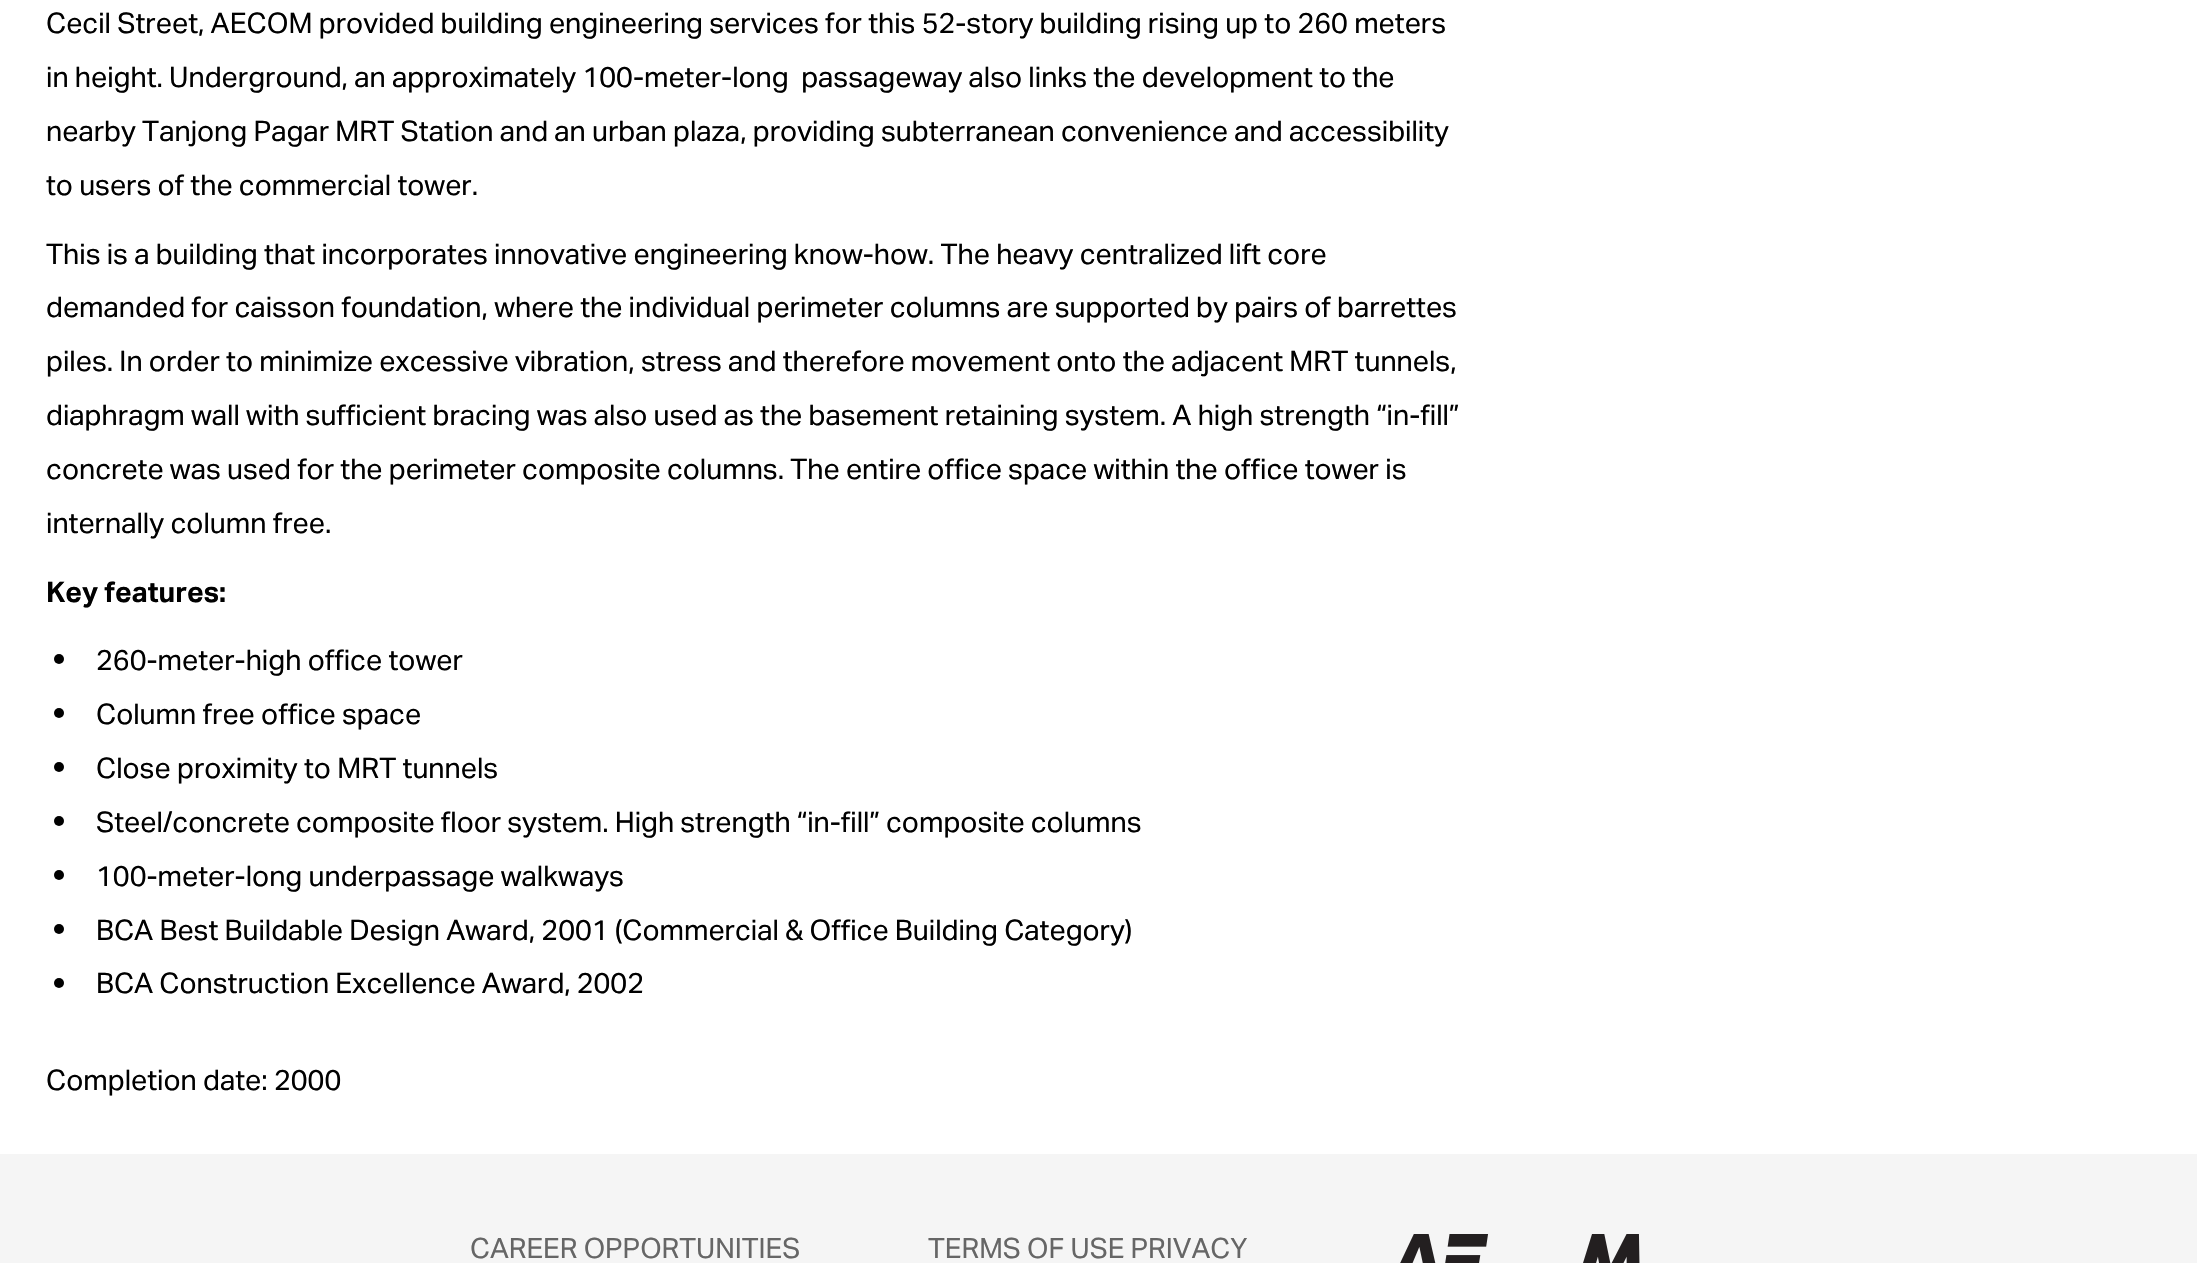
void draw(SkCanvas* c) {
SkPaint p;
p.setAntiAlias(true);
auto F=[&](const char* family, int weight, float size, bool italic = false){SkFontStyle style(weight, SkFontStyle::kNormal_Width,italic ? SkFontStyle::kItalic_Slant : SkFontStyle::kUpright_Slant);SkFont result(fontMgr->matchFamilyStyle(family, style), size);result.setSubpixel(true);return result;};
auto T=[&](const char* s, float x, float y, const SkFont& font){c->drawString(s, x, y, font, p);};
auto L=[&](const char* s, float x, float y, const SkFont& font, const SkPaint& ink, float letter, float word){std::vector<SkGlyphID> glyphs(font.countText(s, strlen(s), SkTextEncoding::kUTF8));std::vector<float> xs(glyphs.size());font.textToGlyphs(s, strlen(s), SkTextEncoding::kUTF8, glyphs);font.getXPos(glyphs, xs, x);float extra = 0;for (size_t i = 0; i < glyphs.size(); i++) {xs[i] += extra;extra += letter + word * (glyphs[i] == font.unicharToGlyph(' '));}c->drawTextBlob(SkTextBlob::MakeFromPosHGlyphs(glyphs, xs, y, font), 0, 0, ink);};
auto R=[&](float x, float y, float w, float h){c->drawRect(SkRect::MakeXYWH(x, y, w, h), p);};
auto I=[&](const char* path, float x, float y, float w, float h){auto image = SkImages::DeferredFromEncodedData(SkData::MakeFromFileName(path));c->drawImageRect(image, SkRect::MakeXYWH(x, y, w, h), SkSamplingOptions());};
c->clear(0xffffffff);
auto f1 = F("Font",400,28.4);
p.setColor(0xff000000);
L("Cecil Street, AECOM provided building engineering services for this 52-story building rising up to 260 meters",46,33,f1,p,0,-.1);
L("in height. Underground, an approximately 100-meter-long  passageway also links the development to the",46,87,f1,p,0,-.1);
L("nearby Tanjong Pagar MRT Station and an urban plaza, providing subterranean convenience and accessibility",46,141,f1,p,0,-.1);
L("to users of the commercial tower.",46,195,f1,p,0,-.1);
L("This is a building that incorporates innovative engineering know-how. The heavy centralized lift core",46,264,f1,p,0,-.1);
L("demanded for caisson foundation, where the individual perimeter columns are supported by pairs of barrettes",46,317,f1,p,0,-.1);
L("piles. In order to minimize excessive vibration, stress and therefore movement onto the adjacent MRT tunnels,",46,371,f1,p,0,-.1);
L("diaphragm wall with sufficient bracing was also used as the basement retaining system. A high strength “in-fill”",46,425,f1,p,0,-.1);
L("concrete was used for the perimeter composite columns. The entire office space within the office tower is",46,479,f1,p,0,-.1);
T("internally column free.",46,533,f1);
auto f2 = F("Font",700,28.4);
T("Key features:",46,602,f2);
c->drawCircle(59,659,5,p);
T("260-meter-high office tower",96,670,f1);
c->drawCircle(59,713,5,p);
T("Column free office space",96,724,f1);
c->drawCircle(59,767,5,p);
T("Close proximity to MRT tunnels",96,778,f1);
c->drawCircle(59,821,5,p);
L("Steel/concrete composite floor system. High strength “in-fill” composite columns",96,832,f1,p,0,-.25);
c->drawCircle(59,875,5,p);
T("100-meter-long underpassage walkways",96,886,f1);
c->drawCircle(59,929,5,p);
L("BCA Best Buildable Design Award, 2001 (Commercial & Office Building Category)",96,940,f1,p,0,-.1);
c->drawCircle(59,983,5,p);
L("BCA Construction Excellence Award, 2002",96,993,f1,p,0,-.25);
T("Completion date: 2000",46,1090,f1);
p.setColor(0xfff5f5f5);
R(0,1154,2197,109);
auto f3 = F("Font",400,28);
p.setColor(0xff666666);
T("CAREER OPPORTUNITIES",470,1258,f3);
T("TERMS OF USE PRIVACY",928,1258,f3);
I("1.png",1400,1234,240,29);
}
